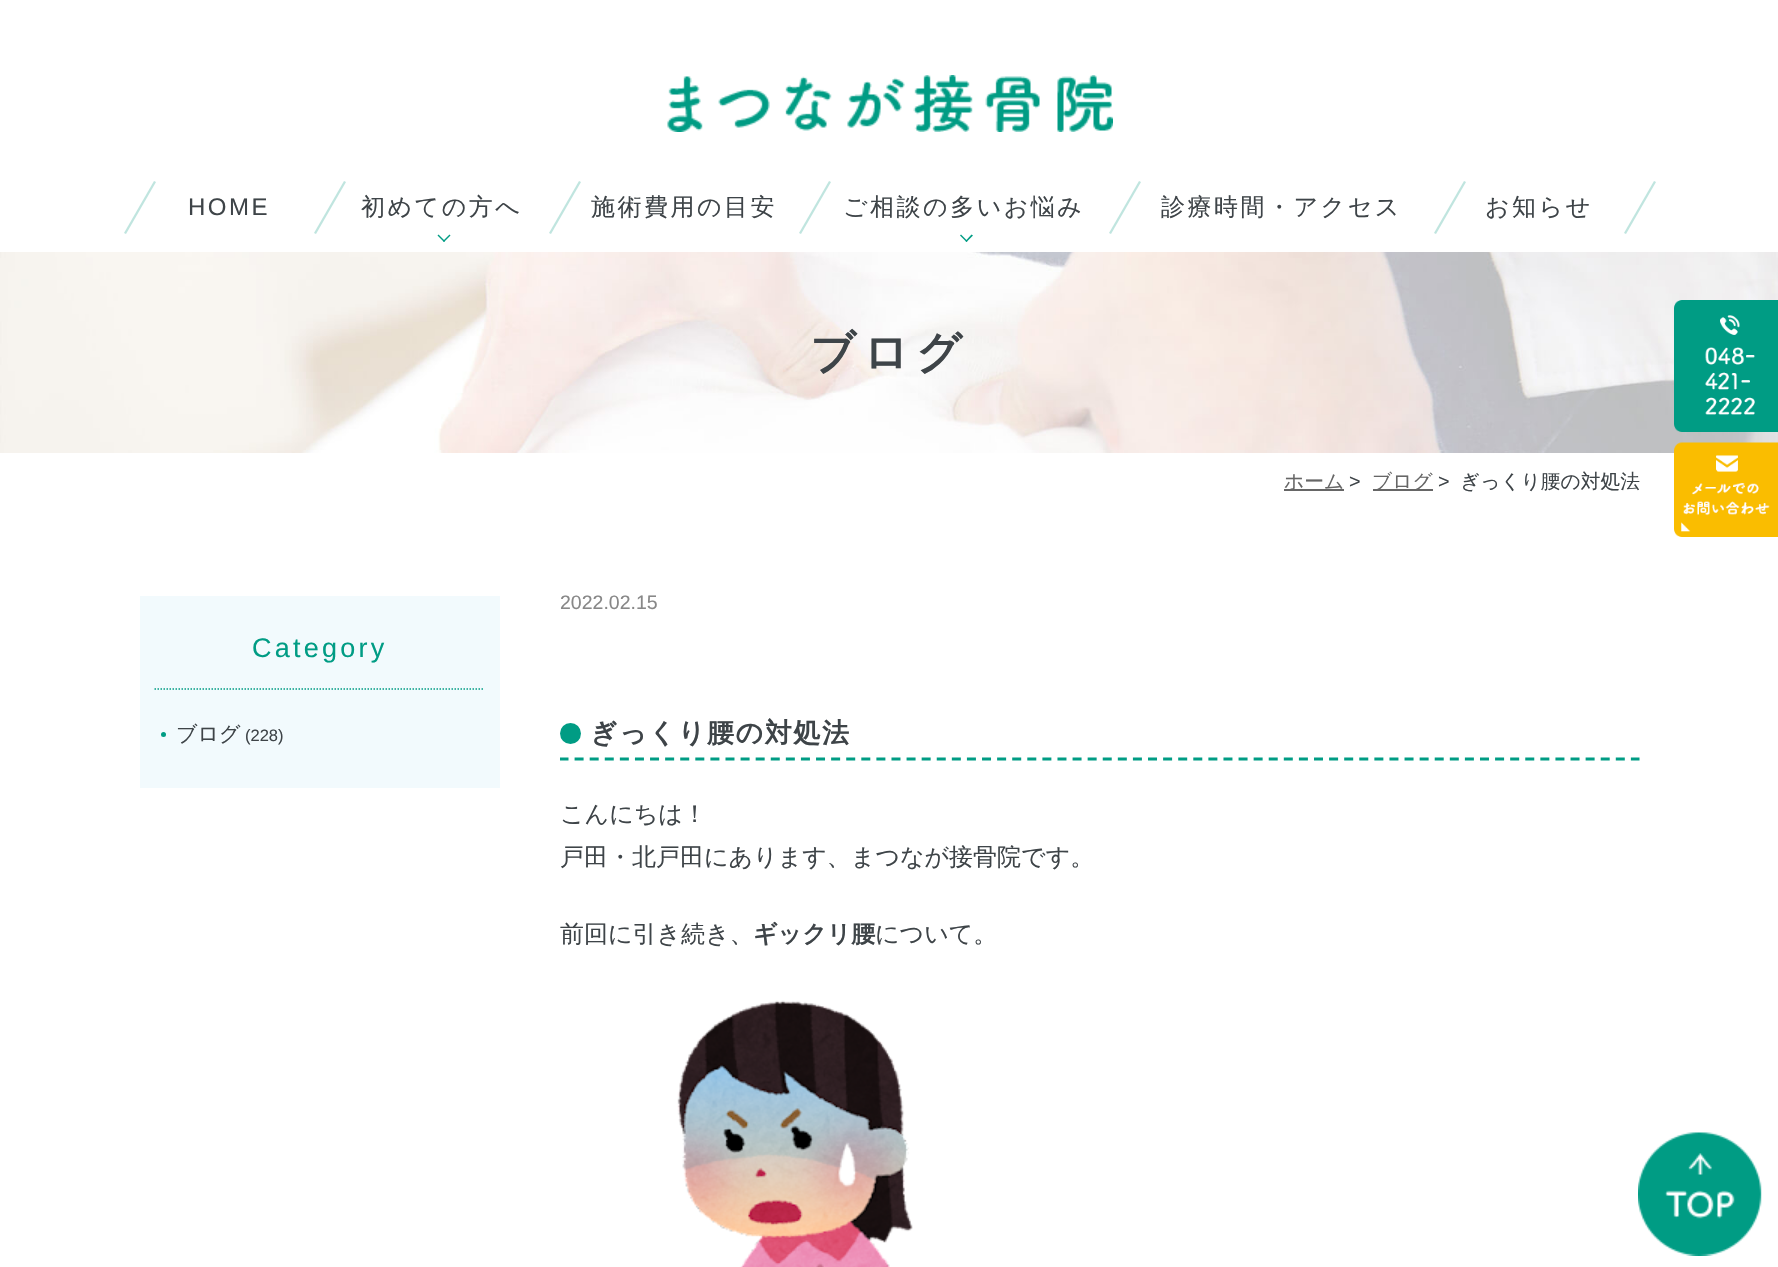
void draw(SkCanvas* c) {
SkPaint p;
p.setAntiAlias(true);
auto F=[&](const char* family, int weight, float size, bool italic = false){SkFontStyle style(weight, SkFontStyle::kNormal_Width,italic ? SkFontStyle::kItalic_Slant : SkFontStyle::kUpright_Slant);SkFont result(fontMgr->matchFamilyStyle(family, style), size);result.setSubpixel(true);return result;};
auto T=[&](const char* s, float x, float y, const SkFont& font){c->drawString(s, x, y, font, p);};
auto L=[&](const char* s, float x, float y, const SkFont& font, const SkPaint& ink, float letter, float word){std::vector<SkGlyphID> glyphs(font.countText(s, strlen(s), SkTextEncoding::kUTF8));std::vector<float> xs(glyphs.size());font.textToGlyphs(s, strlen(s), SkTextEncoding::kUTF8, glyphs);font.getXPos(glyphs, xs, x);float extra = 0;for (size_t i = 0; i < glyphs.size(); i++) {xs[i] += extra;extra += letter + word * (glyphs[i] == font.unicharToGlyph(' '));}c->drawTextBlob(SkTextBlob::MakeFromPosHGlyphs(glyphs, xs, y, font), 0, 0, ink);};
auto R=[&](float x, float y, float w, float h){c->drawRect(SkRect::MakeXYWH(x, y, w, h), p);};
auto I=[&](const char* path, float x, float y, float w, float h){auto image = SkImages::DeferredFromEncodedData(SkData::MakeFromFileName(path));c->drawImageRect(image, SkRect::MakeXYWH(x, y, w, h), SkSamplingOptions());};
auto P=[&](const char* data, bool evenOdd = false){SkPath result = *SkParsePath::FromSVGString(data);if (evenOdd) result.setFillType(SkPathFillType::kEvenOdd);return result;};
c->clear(0xffffffff);
I("1.png",667,75,446,57);
p.setColor(0xffc0e5df);
c->drawPath(P("M154 181l2 1l-30 52l-2-1z"),p);
auto f1 = F("Liberation Sans",400,24);
p.setColor(0xff3e4448);
L("HOME",188,215,f1,p,2.5,0);
p.setColor(0xffc0e5df);
c->drawPath(P("M344 181l2 1l-30 52l-2-1z"),p);
auto f2 = F("WenQuanYi Zen Hei",500,24);
p.setColor(0xff3e4448);
L("初めての方へ",361,215,f2,p,2.5,0);
p.setColor(0xffc0e5df);
c->drawPath(P("M579 181l2 1l-30 52l-2-1z"),p);
p.setColor(0xff009c84);
c->drawPath(P("M450.5 235.5l-6.5 6.5l-1-1l6.5-6.5z"),p);
c->drawPath(P("M445 241l-1 1l-6.5-6.5l1-1z"),p);
p.setColor(0xff3e4448);
L("施術費用の目安",591,215,f2,p,2.5,0);
p.setColor(0xffc0e5df);
c->drawPath(P("M829 181l2 1l-30 52l-2-1z"),p);
p.setColor(0xff3e4448);
L("ご相談の多いお悩み",843,215,f2,p,2.5,0);
p.setColor(0xffc0e5df);
c->drawPath(P("M1139 181l2 1l-30 52l-2-1z"),p);
p.setColor(0xff009c84);
c->drawPath(P("M973 235.5l-6.5 6.5l-1-1l6-6.5z"),p);
c->drawPath(P("M967.5 241l-1 1l-6.5-6.5l1-1z"),p);
p.setColor(0xff3e4448);
L("診療時間・アクセス",1161,215,f2,p,2.5,0);
p.setColor(0xffc0e5df);
c->drawPath(P("M1464 181l2 1l-30 52l-2-1z"),p);
p.setColor(0xff3e4448);
L("お知らせ",1485,215,f2,p,2.5,0);
p.setColor(0xffc0e5df);
c->drawPath(P("M1654 181l2 1l-30 52l-2-1z"),p);
I("2.png",0,252,1778,201);
auto f3 = F("WenQuanYi Zen Hei",700,45);
p.setColor(0xff3e4448);
L("ブログ",810,368,f3,p,7,0);
p.setColor(0xff666666);
R(1284,489,60,2);
auto f4 = F("WenQuanYi Zen Hei",500,19.75);
T("ホーム",1284,488,f4);
auto f5 = F("Liberation Sans",400,19.75);
p.setColor(0xff3e4448);
T(">",1349,488,f5);
p.setColor(0xff666666);
R(1373,489,60,2);
T("ブログ",1372,488,f4);
p.setColor(0xff3e4448);
T(">",1438,488,f5);
T("ぎっくり腰の対処法",1460,488,f4);
p.setColor(0xfff2fafd);
R(140,596,360,192);
p.setStroke(true);
p.setStrokeWidth(1.5);
p.setColor(0xff009c84);
p.setPathEffect(SkDashPathEffect::Make({{1.5f,1.5f}}, 0));
c->drawPath(P("M154.5 689h330"),p);
p.setPathEffect(nullptr);
auto f6 = F("Liberation Sans",400,27);
p.setStroke(false);
L("Category",252,657,f6,p,3.25,0);
c->drawCircle(163.5,734.5,2.5,p);
auto f7 = F("WenQuanYi Zen Hei",500,21);
p.setColor(0xff3e4448);
T("ブログ",176,741,f7);
auto f8 = F("Liberation Sans",400,16.5);
T("(228)",245,741,f8);
I("3.png",1674,300,104,132);
I("4.png",1674,442,104,95);
I("5.png",1638,1132,124,124);
auto f9 = F("Liberation Sans",400,19.5);
p.setColor(0xff888888);
T("2022.02.15",560,609,f9);
c->save();
c->clipRect(SkRect::MakeXYWH(560,572,1080,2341));
p.setStroke(true);
p.setStrokeWidth(3);
p.setColor(0xff009c84);
p.setPathEffect(SkDashPathEffect::Make({{9,6.09f}}, 0));
c->drawPath(P("M559.5 759h1080"),p);
p.setPathEffect(nullptr);
c->restore();
p.setStroke(false);
c->drawCircle(570.5,733.5,10.5,p);
auto f10 = F("WenQuanYi Zen Hei",700,27);
p.setColor(0xff3e4448);
L("ぎっくり腰の対処法",590,742,f10,p,1.6,0);
T("こんにちは！",560,822,f2);
T("戸田・北戸田にあります、まつなが接骨院です。",560,865,f2);
T("前回に引き続き、",560,942,f2);
auto f11 = F("WenQuanYi Zen Hei",700,24);
T("ギックリ腰",753,942,f11);
T("について。",875,942,f2);
I("6.png",677,1000,236,267);
}
